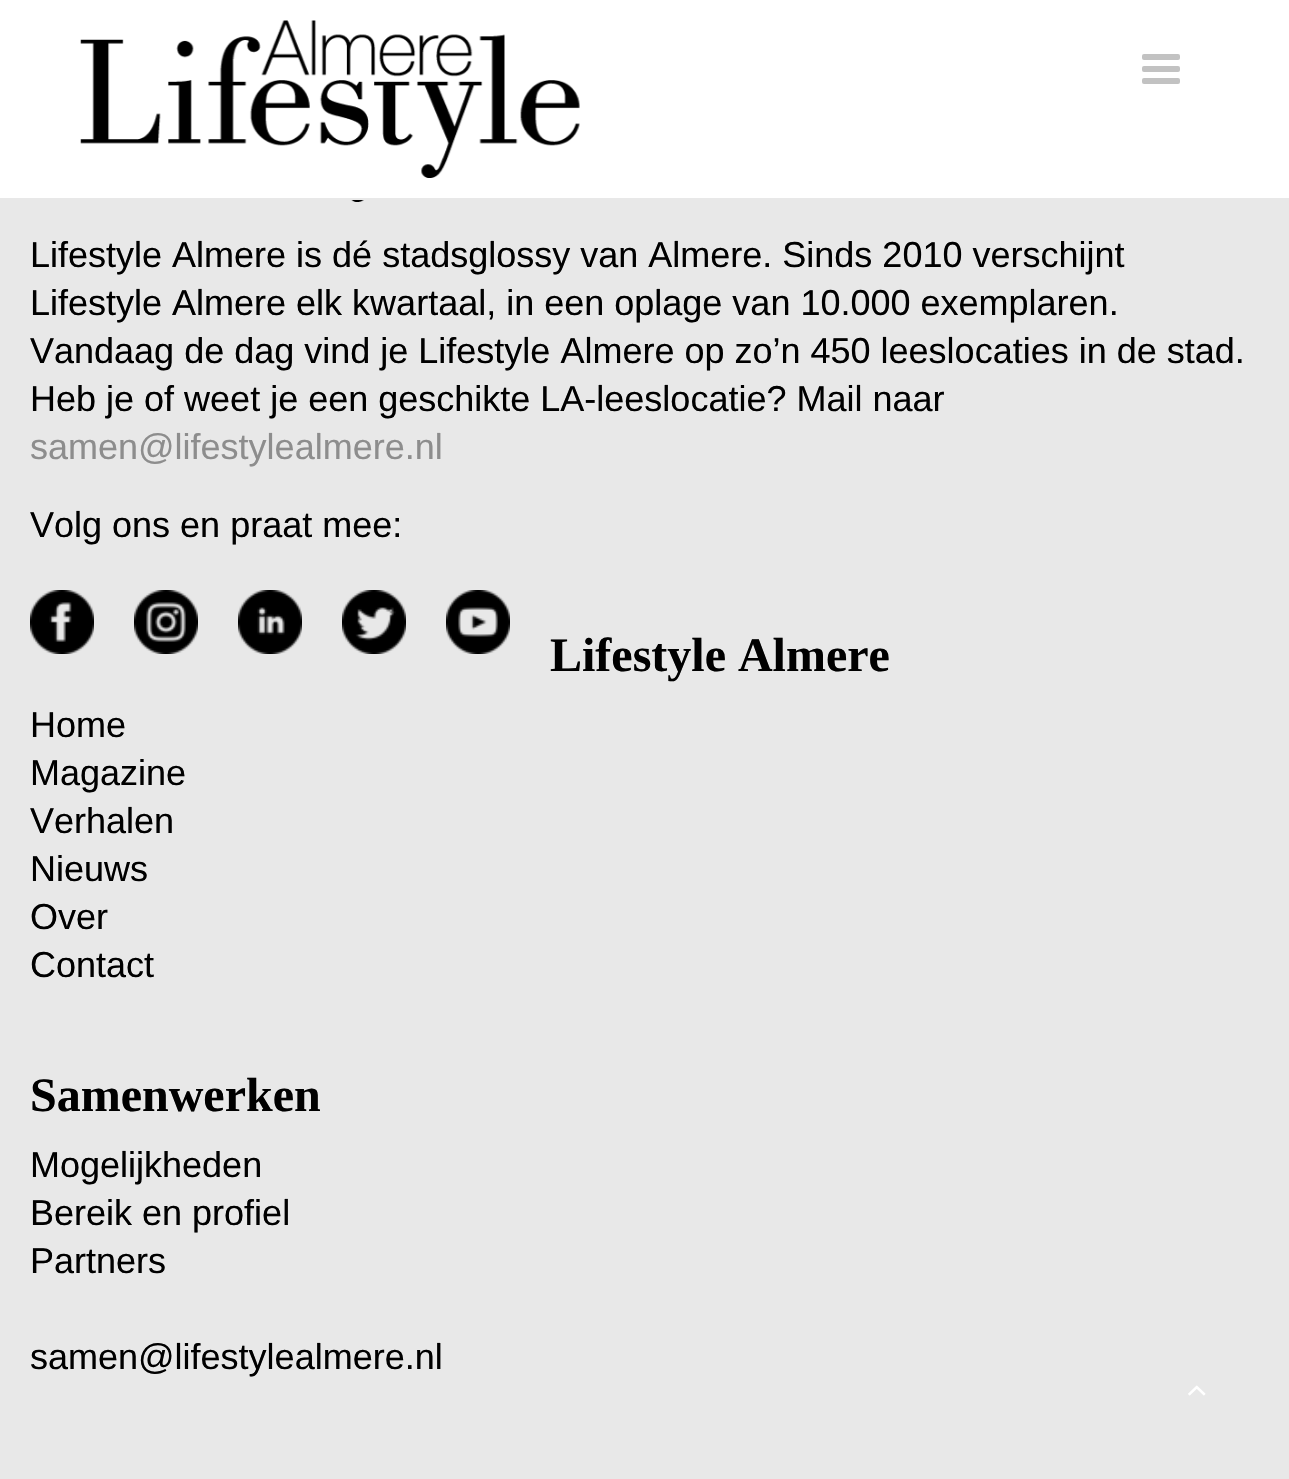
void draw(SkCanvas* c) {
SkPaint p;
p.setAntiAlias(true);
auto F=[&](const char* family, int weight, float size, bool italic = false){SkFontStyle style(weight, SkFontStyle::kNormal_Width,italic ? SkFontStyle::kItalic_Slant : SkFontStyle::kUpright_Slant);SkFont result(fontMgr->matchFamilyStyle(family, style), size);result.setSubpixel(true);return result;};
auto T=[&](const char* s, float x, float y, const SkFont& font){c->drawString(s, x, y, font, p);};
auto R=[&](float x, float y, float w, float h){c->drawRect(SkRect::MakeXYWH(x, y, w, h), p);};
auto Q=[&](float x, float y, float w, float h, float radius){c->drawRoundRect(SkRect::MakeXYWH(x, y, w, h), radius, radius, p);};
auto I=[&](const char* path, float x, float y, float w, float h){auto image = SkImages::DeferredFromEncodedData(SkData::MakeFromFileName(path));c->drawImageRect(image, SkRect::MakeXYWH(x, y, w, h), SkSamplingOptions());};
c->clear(0xffe8e8e8);
p.setColor(0xffffffff);
R(0,0,1289,198);
I("1.png",80,20,500,158);
p.setColor(0xffc2c2c2);
Q(1142,54,38,6,2);
Q(1142,66,38,6,2);
Q(1142,78,38,6,2);
I("2.png",351,200,13,2);
auto f1 = F("Liberation Sans",400,36);
p.setColor(0xff000000);
T("Lifestyle Almere is dé stadsglossy van Almere. Sinds 2010 verschijnt",30,267,f1);
T("Lifestyle Almere elk kwartaal, in een oplage van 10.000 exemplaren.",30,315,f1);
T("Vandaag de dag vind je Lifestyle Almere op zo’n 450 leeslocaties in de stad.",30,363,f1);
T("Heb je of weet je een geschikte LA-leeslocatie? Mail naar",30,411,f1);
p.setColor(0xff8d8d8d);
T("samen@lifestylealmere.nl",30,459,f1);
p.setColor(0xff000000);
T("Volg ons en praat mee:",30,537,f1);
I("3.png",30,590,64,64);
I("4.png",134,590,64,64);
I("5.png",238,590,64,64);
I("6.png",342,590,64,64);
I("7.png",446,590,64,64);
auto f2 = F("Liberation Serif",700,48);
T("Lifestyle Almere",550,671,f2);
T("Home",30,737,f1);
T("Magazine",30,785,f1);
T("Verhalen",30,833,f1);
T("Nieuws",30,881,f1);
T("Over",30,929,f1);
T("Contact",30,977,f1);
T("Samenwerken",30,1111,f2);
T("Mogelijkheden",30,1177,f1);
T("Bereik en profiel",30,1225,f1);
T("Partners",30,1273,f1);
T("samen@lifestylealmere.nl",30,1369,f1);
I("8.png",1188,1385,18,11);
}
